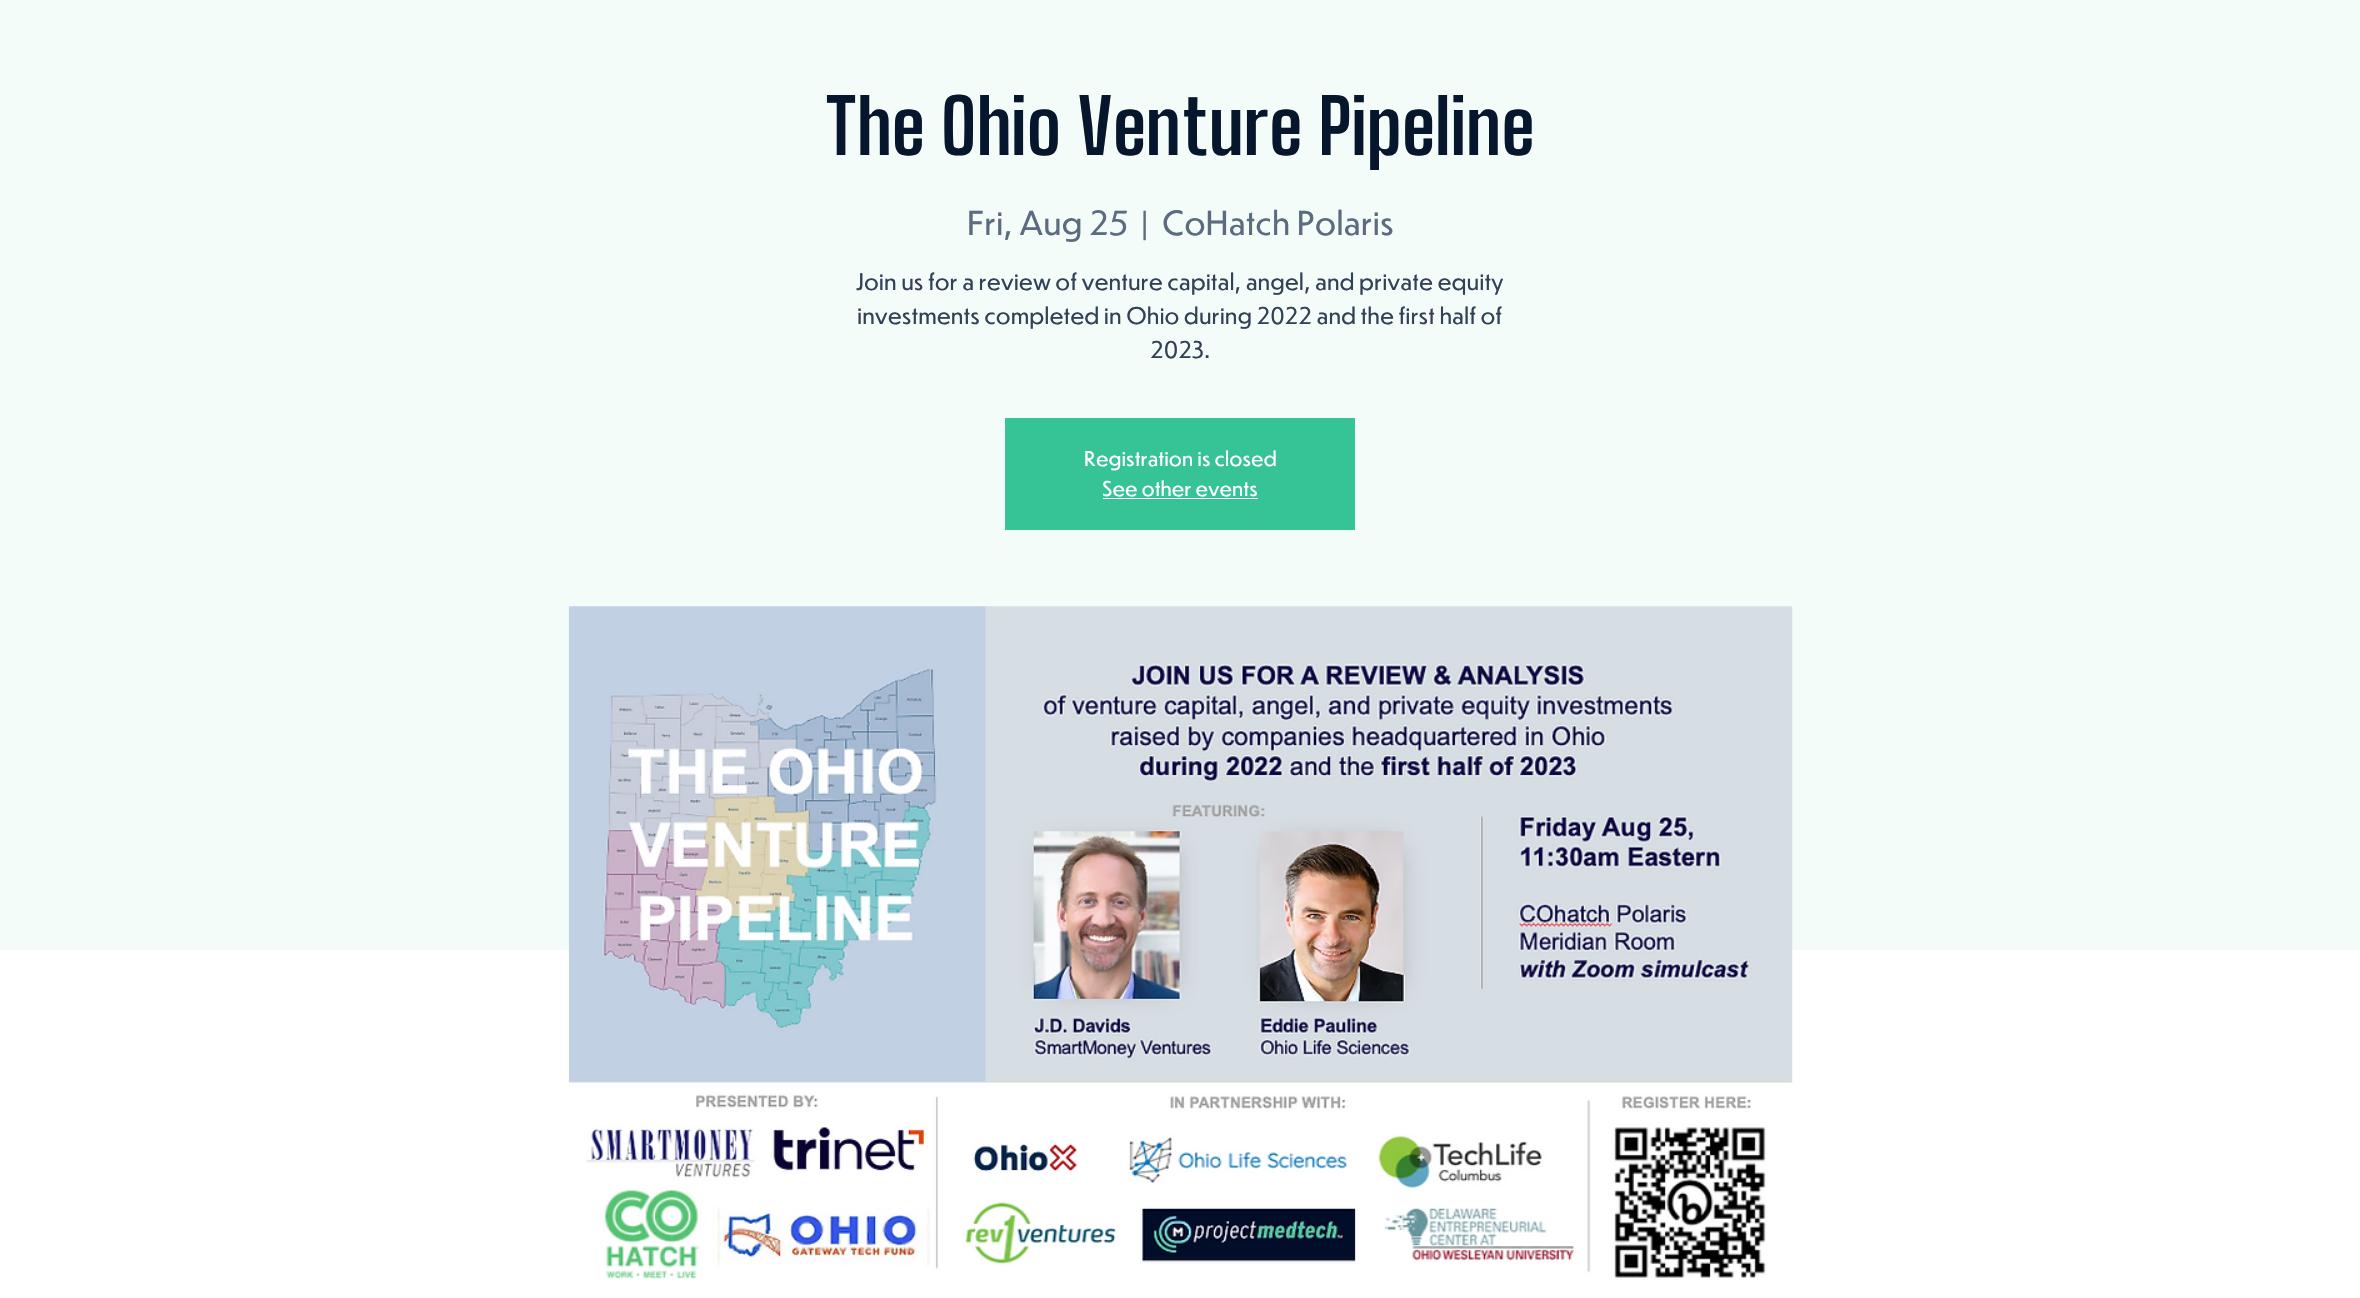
void draw(SkCanvas* c) {
SkPaint p;
p.setAntiAlias(true);
auto F=[&](const char* family, int weight, float size, bool italic = false){SkFontStyle style(weight, SkFontStyle::kNormal_Width,italic ? SkFontStyle::kItalic_Slant : SkFontStyle::kUpright_Slant);SkFont result(fontMgr->matchFamilyStyle(family, style), size);result.setSubpixel(true);return result;};
auto T=[&](const char* s, float x, float y, const SkFont& font){c->drawString(s, x, y, font, p);};
auto R=[&](float x, float y, float w, float h){c->drawRect(SkRect::MakeXYWH(x, y, w, h), p);};
auto I=[&](const char* path, float x, float y, float w, float h){auto image = SkImages::DeferredFromEncodedData(SkData::MakeFromFileName(path));c->drawImageRect(image, SkRect::MakeXYWH(x, y, w, h), SkSamplingOptions());};
c->clear(0xffffffff);
p.setColor(0xfff4fcf9);
R(0,0,2360,950);
auto f1 = F("Big Shoulders Text",700,75);
p.setColor(0xff06162c);
T("The Ohio Venture Pipeline",825,155,f1);
auto f2 = F("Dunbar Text",400,32.5);
p.setColor(0xff5b6b80);
T("Fri, Aug 25",967,235,f2);
T("|",1141,235,f2);
T("CoHatch Polaris",1162,235,f2);
auto f3 = F("Dunbar Text",400,22.5);
p.setColor(0xff314156);
T("Join us for a review of venture capital, angel, and private equity",856,290,f3);
T("investments completed in Ohio during 2022 and the first half of",857,324,f3);
T("2023.",1150,358,f3);
p.setColor(0xff36c395);
R(1005,418,350,112);
auto f4 = F("Dunbar Text",400,20);
p.setColor(0xffffffff);
T("Registration is closed",1084,466,f4);
T("See other events",1102,496,f4);
R(1103,498,155,1);
I("1.png",568,606,1225,673);
}
